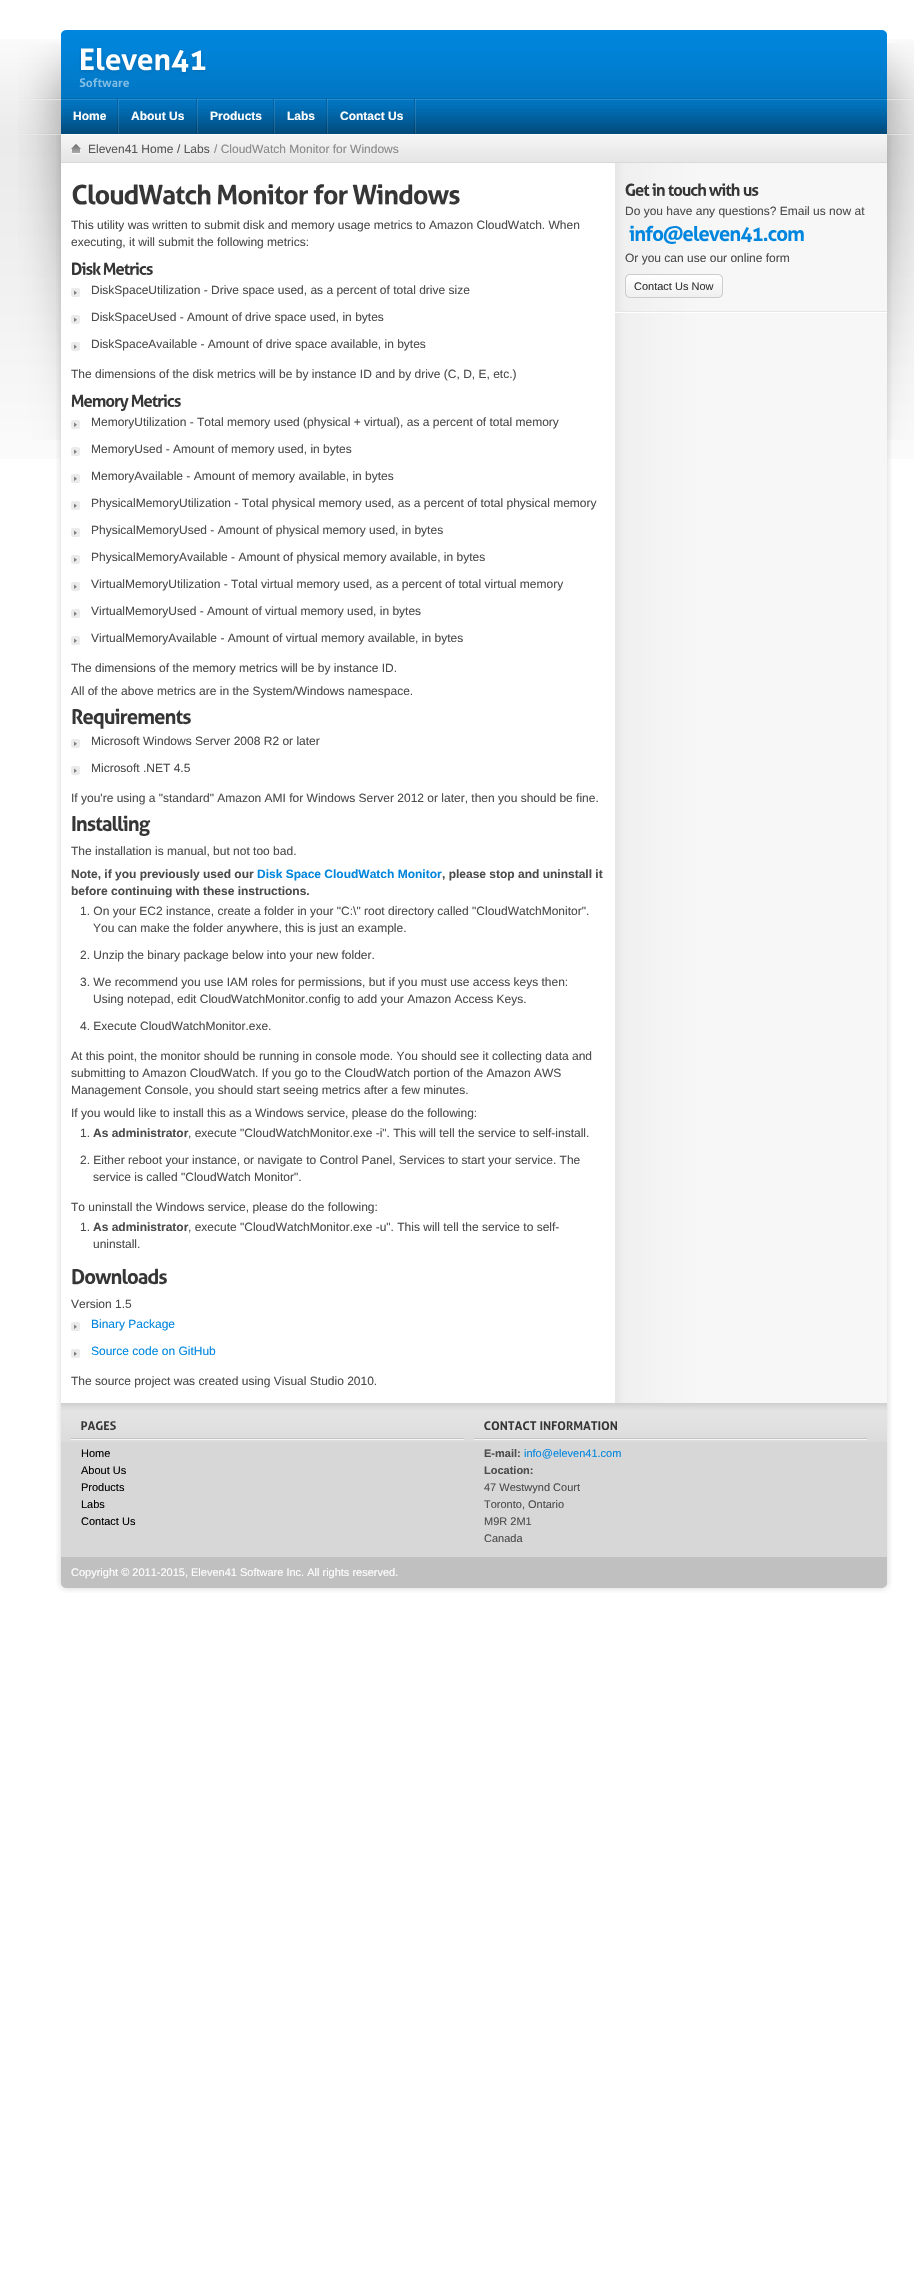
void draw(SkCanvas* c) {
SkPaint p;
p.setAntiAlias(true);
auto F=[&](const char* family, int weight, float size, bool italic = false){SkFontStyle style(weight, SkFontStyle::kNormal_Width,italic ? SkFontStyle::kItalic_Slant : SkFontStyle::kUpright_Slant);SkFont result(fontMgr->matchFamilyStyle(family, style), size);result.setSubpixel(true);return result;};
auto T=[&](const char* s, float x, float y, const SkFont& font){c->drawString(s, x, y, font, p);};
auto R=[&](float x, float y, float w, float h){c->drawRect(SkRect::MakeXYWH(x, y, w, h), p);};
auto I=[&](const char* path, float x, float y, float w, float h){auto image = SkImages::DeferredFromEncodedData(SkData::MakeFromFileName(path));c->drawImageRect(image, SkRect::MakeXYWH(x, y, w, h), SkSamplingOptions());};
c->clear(0xffffffff);
I("1.png",0,39,914,420);
I("2.png",18,43,896,397);
I("3.png",61,35,826,99);
I("4.png",61,30,826,5);
I("5.png",79,47,128,40);
I("6.png",117,99,2,35);
auto f1 = F("Liberation Sans",700,12);
p.setColor(0xffffffff);
T("Home",73,120,f1);
I("6.png",196,99,2,35);
T("About Us",131,120,f1);
I("6.png",273,99,2,35);
T("Products",210,120,f1);
I("6.png",326,99,2,35);
T("Labs",287,120,f1);
I("6.png",414,99,2,35);
T("Contact Us",340,120,f1);
I("7.png",56,134,836,1449);
I("8.png",61,135,826,28);
I("9.png",71,144,10,10);
auto f2 = F("Liberation Sans",400,12);
p.setColor(0xff575757);
T("Eleven41 Home",88,153,f2);
T("/ Labs",177,153,f2);
p.setColor(0xff898989);
T("/ CloudWatch Monitor for Windows",214,153,f2);
I("10.png",615,163,272,1240);
I("11.png",72,184,139,21);
I("12.png",217,184,91,21);
I("13.png",313,184,35,21);
I("14.png",352,184,108,21);
p.setColor(0xff4c4c4c);
T("This utility was written to submit disk and memory usage metrics to Amazon CloudWatch. When",71,229,f2);
T("executing, it will submit the following metrics:",71,246,f2);
I("15.png",72,262,29,13);
I("16.png",103,262,50,13);
I("17.png",71,288,9,9);
T("DiskSpaceUtilization - Drive space used, as a percent of total drive size",91,294,f2);
I("17.png",71,315,9,9);
T("DiskSpaceUsed - Amount of drive space used, in bytes",91,321,f2);
I("17.png",71,342,9,9);
T("DiskSpaceAvailable - Amount of drive space available, in bytes",91,348,f2);
T("The dimensions of the disk metrics will be by instance ID and by drive (C, D, E, etc.)",71,378,f2);
I("18.png",71,394,58,17);
I("16.png",131,394,50,13);
I("17.png",71,420,9,9);
T("MemoryUtilization - Total memory used (physical + virtual), as a percent of total memory",91,426,f2);
I("17.png",71,447,9,9);
T("MemoryUsed - Amount of memory used, in bytes",91,453,f2);
I("17.png",71,474,9,9);
T("MemoryAvailable - Amount of memory available, in bytes",91,480,f2);
I("17.png",71,501,9,9);
T("PhysicalMemoryUtilization - Total physical memory used, as a percent of total physical memory",91,507,f2);
I("17.png",71,528,9,9);
T("PhysicalMemoryUsed - Amount of physical memory used, in bytes",91,534,f2);
I("17.png",71,555,9,9);
T("PhysicalMemoryAvailable - Amount of physical memory available, in bytes",91,561,f2);
I("17.png",71,582,9,9);
T("VirtualMemoryUtilization - Total virtual memory used, as a percent of total virtual memory",91,588,f2);
I("17.png",71,609,9,9);
T("VirtualMemoryUsed - Amount of virtual memory used, in bytes",91,615,f2);
I("17.png",71,636,9,9);
T("VirtualMemoryAvailable - Amount of virtual memory available, in bytes",91,642,f2);
T("The dimensions of the memory metrics will be by instance ID.",71,672,f2);
T("All of the above metrics are in the System/Windows namespace.",71,695,f2);
I("19.png",72,708,119,21);
I("17.png",71,739,9,9);
T("Microsoft Windows Server 2008 R2 or later",91,745,f2);
I("17.png",71,766,9,9);
T("Microsoft .NET 4.5",91,772,f2);
T("If you're using a \"standard\" Amazon AMI for Windows Server 2012 or later, then you should be fine.",71,802,f2);
I("20.png",72,815,79,21);
T("The installation is manual, but not too bad.",71,855,f2);
T("Note, if you previously used our",71,878,f1);
p.setColor(0xff0086de);
T("Disk Space CloudWatch Monitor",257,878,f1);
p.setColor(0xff4c4c4c);
T(", please stop and uninstall it",442,878,f1);
T("before continuing with these instructions.",71,895,f1);
T("1. On your EC2 instance, create a folder in your \"C:\\\" root directory called \"CloudWatchMonitor\".",80,915,f2);
T("You can make the folder anywhere, this is just an example.",93,932,f2);
T("2. Unzip the binary package below into your new folder.",80,959,f2);
T("3. We recommend you use IAM roles for permissions, but if you must use access keys then:",80,986,f2);
T("Using notepad, edit CloudWatchMonitor.config to add your Amazon Access Keys.",93,1003,f2);
T("4. Execute CloudWatchMonitor.exe.",80,1030,f2);
T("At this point, the monitor should be running in console mode. You should see it collecting data and",71,1060,f2);
T("submitting to Amazon CloudWatch. If you go to the CloudWatch portion of the Amazon AWS",71,1077,f2);
T("Management Console, you should start seeing metrics after a few minutes.",71,1094,f2);
T("If you would like to install this as a Windows service, please do the following:",71,1117,f2);
T("1.",80,1137,f2);
T("As administrator",93,1137,f1);
T(", execute \"CloudWatchMonitor.exe -i\". This will tell the service to self-install.",188,1137,f2);
T("2. Either reboot your instance, or navigate to Control Panel, Services to start your service. The",80,1164,f2);
T("service is called \"CloudWatch Monitor\".",93,1181,f2);
T("To uninstall the Windows service, please do the following:",71,1211,f2);
T("1.",80,1231,f2);
T("As administrator",93,1231,f1);
T(", execute \"CloudWatchMonitor.exe -u\". This will tell the service to self-",188,1231,f2);
T("uninstall.",93,1248,f2);
I("21.png",72,1268,95,17);
T("Version 1.5",71,1308,f2);
I("17.png",71,1322,9,9);
p.setColor(0xff0086de);
T("Binary Package",91,1328,f2);
I("17.png",71,1349,9,9);
T("Source code on GitHub",91,1355,f2);
p.setColor(0xff4c4c4c);
T("The source project was created using Visual Studio 2010.",71,1385,f2);
I("22.png",625,183,25,13);
I("23.png",652,183,13,13);
I("24.png",668,183,38,13);
I("25.png",709,183,31,13);
I("26.png",743,187,16,9);
T("Do you have any questions? Email us now at",625,215,f2);
I("27.png",629,225,175,19);
T("Or you can use our online form",625,262,f2);
I("28.png",625,274,6,24);
I("29.png",631,274,92,24);
auto f3 = F("Liberation Sans",400,11);
p.setColor(0xff363636);
T("Contact Us Now",634,290,f3);
I("30.png",615,311,272,2);
p.setColor(0xffd7d7d7);
R(61,1442,826,115);
I("31.png",61,1403,826,39);
I("32.png",71,1438,393,2);
I("33.png",81,1421,35,9);
p.setColor(0xff000000);
T("Home",81,1457,f3);
T("About Us",81,1474,f3);
T("Products",81,1491,f3);
T("Labs",81,1508,f3);
T("Contact Us",81,1525,f3);
I("32.png",474,1438,393,2);
I("34.png",484,1421,53,9);
I("35.png",540,1421,77,9);
auto f4 = F("Liberation Sans",700,11);
p.setColor(0xff4c4c4c);
T("E-mail:",484,1457,f4);
p.setColor(0xff0086de);
T("info@eleven41.com",524,1457,f3);
p.setColor(0xff4c4c4c);
T("Location:",484,1474,f4);
T("47 Westwynd Court",484,1491,f3);
T("Toronto, Ontario",484,1508,f3);
T("M9R 2M1",484,1525,f3);
T("Canada",484,1542,f3);
p.setColor(0xffc0c0c0);
R(61,1557,826,26);
p.setColor(0xffffffff);
T("Copyright © 2011-2015, Eleven41 Software Inc. All rights reserved.",71,1576,f3);
I("36.png",57,1583,834,10);
}
